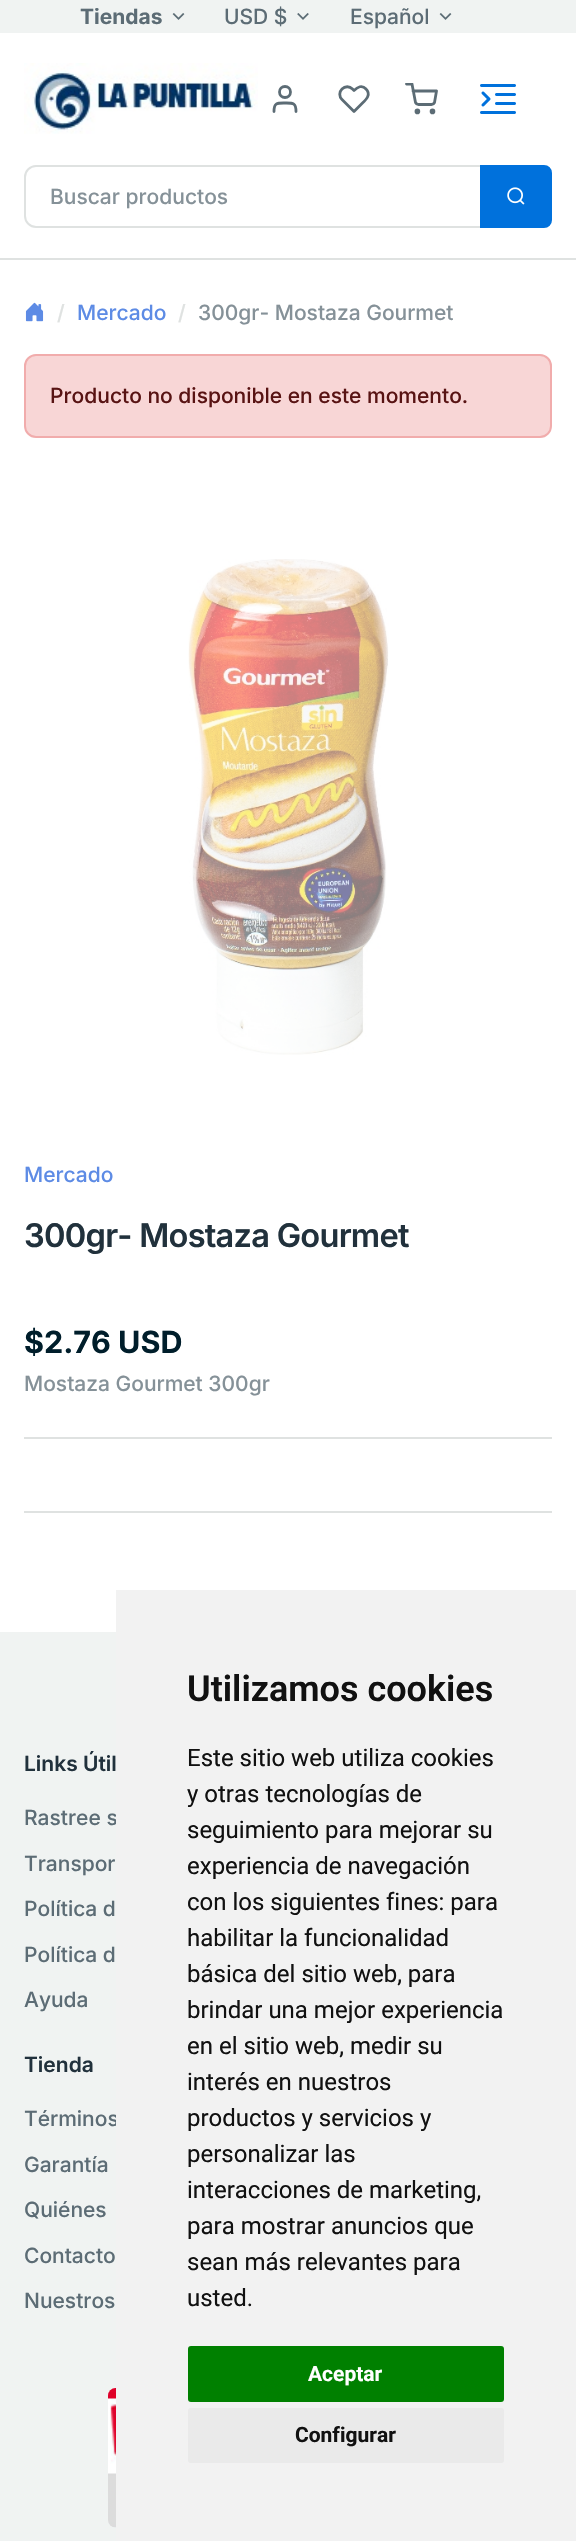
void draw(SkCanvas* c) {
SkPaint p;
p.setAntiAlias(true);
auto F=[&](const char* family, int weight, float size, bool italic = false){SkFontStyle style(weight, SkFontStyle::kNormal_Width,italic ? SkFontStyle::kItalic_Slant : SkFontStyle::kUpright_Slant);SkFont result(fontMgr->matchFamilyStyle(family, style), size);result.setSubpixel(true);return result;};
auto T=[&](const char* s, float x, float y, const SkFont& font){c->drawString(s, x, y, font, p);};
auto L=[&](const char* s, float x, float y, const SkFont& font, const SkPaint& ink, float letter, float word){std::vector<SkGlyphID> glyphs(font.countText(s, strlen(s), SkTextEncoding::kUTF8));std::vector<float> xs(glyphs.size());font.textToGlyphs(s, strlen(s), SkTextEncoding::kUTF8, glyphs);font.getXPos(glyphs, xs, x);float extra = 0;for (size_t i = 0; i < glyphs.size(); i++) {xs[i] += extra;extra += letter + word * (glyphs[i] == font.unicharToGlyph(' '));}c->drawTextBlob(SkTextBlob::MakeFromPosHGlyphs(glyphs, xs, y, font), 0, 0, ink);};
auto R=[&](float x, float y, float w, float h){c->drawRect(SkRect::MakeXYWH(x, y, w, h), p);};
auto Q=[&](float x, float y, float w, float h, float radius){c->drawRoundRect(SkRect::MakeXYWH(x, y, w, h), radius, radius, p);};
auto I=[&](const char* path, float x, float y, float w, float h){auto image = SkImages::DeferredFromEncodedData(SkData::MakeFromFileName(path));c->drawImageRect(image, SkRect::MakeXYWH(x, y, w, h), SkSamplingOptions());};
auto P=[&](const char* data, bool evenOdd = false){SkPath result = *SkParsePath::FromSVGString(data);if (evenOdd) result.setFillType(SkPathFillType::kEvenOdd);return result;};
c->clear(0xffffffff);
p.setColor(0xffdfe2e1);
R(0,258,576,2);
p.setColor(0xfff0f3f2);
R(0,0,576,33);
auto f1 = F("Inter",700,21);
p.setColor(0xff5c6c75);
T("Tiendas",80,24,f1);
I("1.png",172,13,13,7);
auto f2 = F("Inter",500,21);
T("USD $",224,24,f2);
I("2.png",297,13,12,7);
T("Español",350,24,f2);
I("1.png",439,13,13,7);
I("3.png",24,63,234,71);
p.setStroke(true);
p.setStrokeWidth(2.8);
c->drawCircle(285,92,5.5,p);
p.setStrokeCap(SkPaint::kRound_Cap);
p.setStrokeJoin(SkPaint::kRound_Join);
c->drawPath(P("M296 111.5c0-9-3-8.5-11-8.5c-8 0-11-.5-11 8.5"),p);
c->drawPath(P("M366 89c-4-4.5-8.5-2-12 1.5l-1.5-1.5c-3-3-7.5-3-10.5 0c-3 3-3 7.5 0 10.5l12 12l7-7c4-4 11-9.5 5-15.5z"),p);
c->save();
c->clipRect(SkRect::MakeXYWH(405,83,33,33));
c->drawPath(P("M406.5 84h5.5l3.5 18.5c.5 1 1.5 2 3 2h13c1.5 0 2.5-1 3-2l2-11.5h-23.5"),p);
c->restore();
p.setStrokeCap(SkPaint::kButt_Cap);
p.setStrokeJoin(SkPaint::kMiter_Join);
c->drawCircle(417.4,111.4,1.4,p);
c->drawCircle(432.5,111.4,1.4,p);
I("4.png",480,84,36,30);
p.setStrokeWidth(2);
p.setColor(0xffdfe2e1);
c->drawPath(P("M36 166h445v61h-445c-6 0-11-5-11-11v-39c0-6 5-11 11-11z"),p);
p.setStroke(false);
p.setColor(0xff859198);
T("Buscar productos",50,204,f2);
p.setColor(0xff0071dc);
c->drawPath(P("M481 166h63c4 0 7 3 7 7v47c0 4-3 7-7 7h-63z"),p);
p.setStroke(true);
c->drawPath(P("M481 166h63c4 0 7 3 7 7v47c0 4-3 7-7 7h-63z"),p);
I("5.png",507,187,18,18);
I("6.png",25,302,19,20);
p.setStroke(false);
p.setColor(0xffdfe2e1);
T("/",57,320,f2);
p.setColor(0xff5d8be5);
T("Mercado",77,320,f2);
p.setColor(0xffdfe2e1);
T("/",178,320,f2);
p.setColor(0xff859198);
T("300gr- Mostaza Gourmet",198,320,f2);
p.setColor(0xfff8d6d6);
c->drawRoundRect(SkRect::MakeXYWH(25,355,526,82),11,11,p);
p.setStroke(true);
p.setColor(0xfff1acac);
c->drawRoundRect(SkRect::MakeXYWH(25,355,526,82),11,11,p);
p.setStroke(false);
p.setColor(0xff581313);
T("Producto no disponible en este momento.",50,403,f2);
I("7.png",188,559,201,496);
p.setColor(0xff5d8be5);
T("Mercado",24,1182,f2);
auto f3 = F("Inter",600,32.6);
p.setColor(0xff21313c);
L("300gr- Mostaza Gourmet",24,1247,f3,p,-.75,0);
auto f4 = F("Inter",700,30.5);
p.setColor(0xff001e2b);
T("$2.76 USD",24,1353,f4);
p.setColor(0xff859198);
T("Mostaza Gourmet 300gr",24,1391,f2);
p.setColor(0xffdfe2e1);
R(24,1437,528,2);
R(24,1511,528,2);
p.setColor(0xfff0f3f2);
R(0,1632,116,909);
auto f5 = F("Inter",600,21);
p.setColor(0xff21313c);
T("Links Útil",24,1771,f5);
p.setColor(0xff5c6c75);
T("Rastree s",24,1825,f2);
T("Transpor",24,1871,f2);
T("Política d",24,1916,f2);
T("Política d",24,1962,f2);
T("Ayuda",24,2007,f2);
p.setColor(0xff21313c);
T("Tienda",24,2072,f5);
p.setColor(0xff5c6c75);
T("Términos",24,2126,f2);
T("Garantía",24,2172,f2);
T("Quiénes",24,2217,f2);
T("Contacto",24,2263,f2);
T("Nuestros",24,2308,f2);
I("8.png",108,2388,8,140);
p.setColor(0xfff2f2f2);
R(116,1590,460,951);
auto f6 = F("Roboto",600,36);
p.setColor(0xff111111);
T("Utilizamos cookies",187,1701,f6);
auto f7 = F("Roboto",400,24);
T("Este sitio web utiliza cookies",187,1766,f7);
T("y otras tecnologías de",187,1802,f7);
T("seguimiento para mejorar su",187,1838,f7);
T("experiencia de navegación",187,1874,f7);
T("con los siguientes fines: para",187,1910,f7);
T("habilitar la funcionalidad",187,1946,f7);
T("básica del sitio web, para",187,1982,f7);
T("brindar una mejor experiencia",187,2018,f7);
T("en el sitio web, medir su",187,2054,f7);
T("interés en nuestros",187,2090,f7);
T("productos y servicios y",187,2126,f7);
T("personalizar las",187,2162,f7);
T("interacciones de marketing,",187,2198,f7);
T("para mostrar anuncios que",187,2234,f7);
T("sean más relevantes para",187,2270,f7);
T("usted.",187,2306,f7);
p.setColor(0xff008000);
Q(188,2346,316,56,3);
auto f8 = F("Roboto",700,21);
p.setColor(0xffffffff);
T("Aceptar",308,2381,f8);
p.setColor(0xffeaeaea);
Q(188,2408,316,55,3);
p.setColor(0xff111111);
T("Configurar",295,2442,f8);
}
